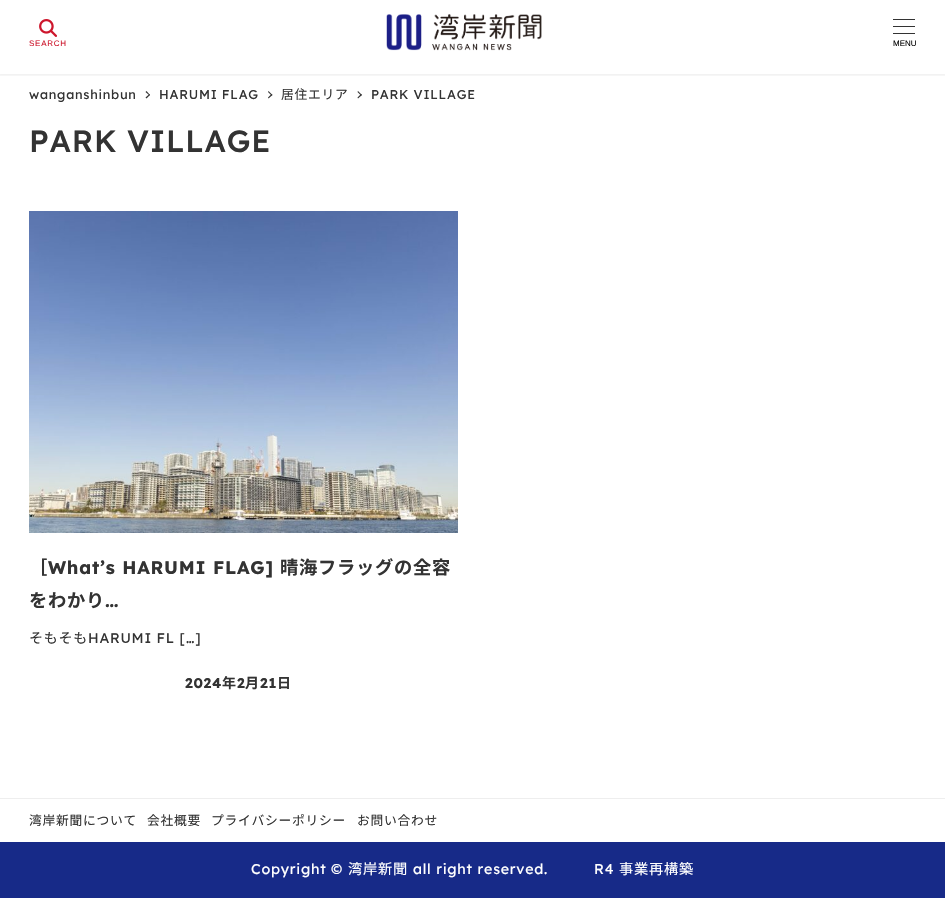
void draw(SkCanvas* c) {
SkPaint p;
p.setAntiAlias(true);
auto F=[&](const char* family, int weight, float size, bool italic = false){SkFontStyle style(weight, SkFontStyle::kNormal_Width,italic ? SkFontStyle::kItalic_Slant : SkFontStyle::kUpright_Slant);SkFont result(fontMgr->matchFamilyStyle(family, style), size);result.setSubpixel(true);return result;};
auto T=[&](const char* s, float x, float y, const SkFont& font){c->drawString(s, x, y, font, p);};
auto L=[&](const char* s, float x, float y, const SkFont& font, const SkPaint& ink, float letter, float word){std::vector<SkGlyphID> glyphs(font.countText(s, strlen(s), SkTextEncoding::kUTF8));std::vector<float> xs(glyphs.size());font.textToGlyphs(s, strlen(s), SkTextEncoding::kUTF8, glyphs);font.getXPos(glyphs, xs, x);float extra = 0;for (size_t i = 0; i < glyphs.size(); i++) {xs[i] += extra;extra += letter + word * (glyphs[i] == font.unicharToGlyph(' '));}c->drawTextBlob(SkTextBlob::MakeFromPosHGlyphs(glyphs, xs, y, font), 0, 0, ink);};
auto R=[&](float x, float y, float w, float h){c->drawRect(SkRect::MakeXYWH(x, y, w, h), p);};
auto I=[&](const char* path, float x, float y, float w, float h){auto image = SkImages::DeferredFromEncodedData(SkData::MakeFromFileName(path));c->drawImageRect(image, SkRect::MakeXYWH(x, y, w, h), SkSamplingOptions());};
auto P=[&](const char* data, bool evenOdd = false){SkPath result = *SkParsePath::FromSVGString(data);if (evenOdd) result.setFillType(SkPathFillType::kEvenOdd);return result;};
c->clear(0xffffffff);
c->save();
c->clipRect(SkRect::MakeXYWH(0,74,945,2));
p.setColor(0x0d000000);
p.setMaskFilter(SkMaskFilter::MakeBlur(kNormal_SkBlurStyle, 1));
c->drawRect(SkRect::MakeXYWH(-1,0,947,76),p);
p.setMaskFilter(nullptr);
c->restore();
I("1.png",39,19,18,18);
auto f1 = F("Liberation Sans",400,8);
p.setColor(0xffcd162c);
L("SEARCH",29,46,f1,p,.75,0);
I("2.png",386,14,156,37);
p.setColor(0xff333333);
R(893,19,22,1);
R(893,26,22,1);
R(893,33,22,1);
p.setColor(0xff000000);
T("MENU",893,46,f1);
auto f2 = F("Lexend Deca",400,12.75);
p.setColor(0xff333333);
L("wanganshinbun",29,99,f2,p,.75,0);
c->drawPath(P("M146.5 91l3.5 4l-.5 .5l-4-3.5z"),p);
c->drawPath(P("M149.5 94l.5 1l-3.5 3.5l-1-1z"),p);
L("HARUMI FLAG",159,99,f2,p,.75,0);
c->drawPath(P("M268.5 91l4 4l-1 .5l-3.5-3.5z"),p);
c->drawPath(P("M271.5 94l1 1l-4 3.5l-.5-1z"),p);
auto f3 = F("Noto Sans JP",400,12.75);
L("居住エリア",281,99,f3,p,.75,0);
c->drawPath(P("M358 91l4 4l-1 .5l-3.5-3.5z"),p);
c->drawPath(P("M361 94l1 1l-4 3.5l-.5-1z"),p);
L("PARK VILLAGE",371,99,f2,p,.75,0);
auto f4 = F("Lexend Deca",500,30.75);
L("PARK VILLAGE",29,152,f4,p,.75,0);
I("3.png",29,211,429,322);
auto f5 = F("Noto Sans JP",700,18.25);
L("［",29,574,f5,p,.75,0);
auto f6 = F("Lexend Deca",700,18.25);
L("What’s HARUMI FLAG]",48,574,f6,p,.75,0);
L("晴海フラッグの全容",280,574,f5,p,.75,0);
L("をわかり",29,607,f5,p,.75,0);
L("…",105,607,f6,p,.75,0);
auto f7 = F("Noto Sans JP",400,14);
L("そもそも",29,643,f7,p,.75,0);
auto f8 = F("Lexend Deca",400,14);
L("HARUMI FL […]",88,643,f8,p,.75,0);
auto f9 = F("Lexend Deca",700,14);
L("2024",185,688,f9,p,.75,0);
auto f10 = F("Noto Sans JP",700,14);
L("年",222,688,f10,p,.75,0);
L("2",237,688,f9,p,.75,0);
L("月",245,688,f10,p,.75,0);
L("21",260,688,f9,p,.75,0);
L("日",277,688,f10,p,.75,0);
p.setColor(0xffeeeeee);
R(0,798,945,1);
p.setColor(0xff333333);
L("湾岸新聞について",29,825,f3,p,.75,0);
L("会社概要",147,825,f3,p,.75,0);
L("プライバシーポリシー",211,825,f3,p,.75,0);
L("お問い合わせ",357,825,f3,p,.75,0);
p.setColor(0xff172a88);
R(0,842,945,56);
auto f11 = F("Lexend Deca",400,14.25);
p.setColor(0xffffffff);
L("Copyright ©",251,874,f11,p,.75,0);
auto f12 = F("Noto Sans JP",400,14.25);
L("湾岸新聞",348,874,f12,p,.75,0);
L("all right reserved.",413,874,f11,p,.75,0);
L("R4",594,874,f11,p,.75,0);
L("事業再構築",619,874,f12,p,.75,0);
}
